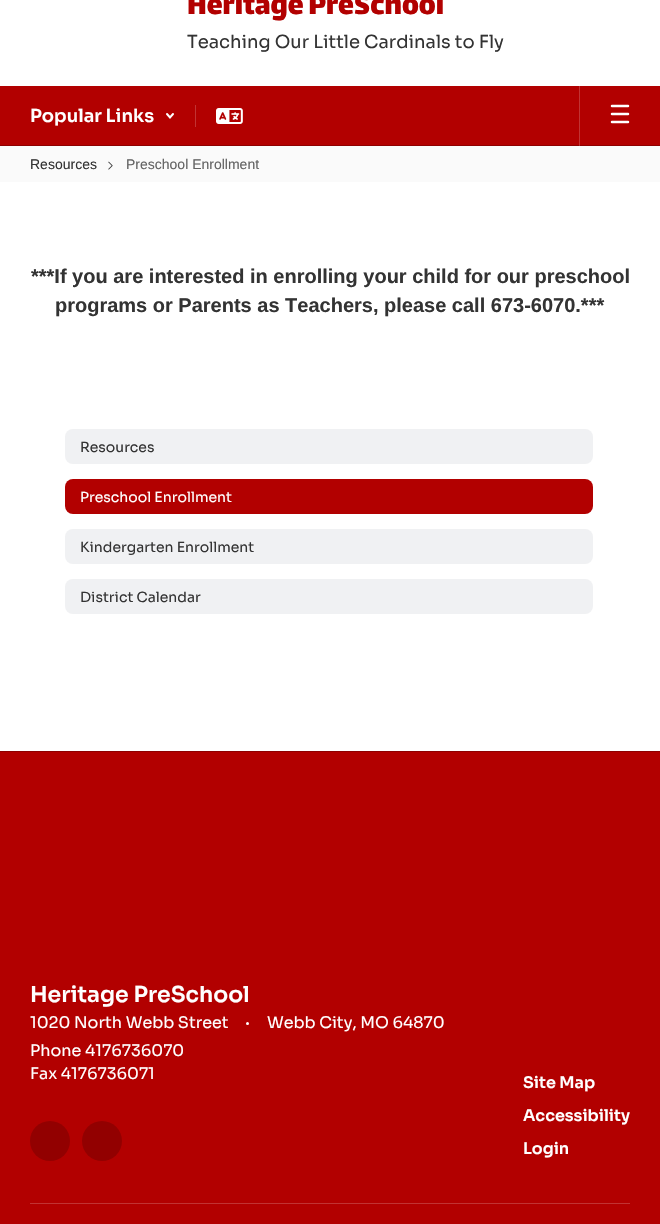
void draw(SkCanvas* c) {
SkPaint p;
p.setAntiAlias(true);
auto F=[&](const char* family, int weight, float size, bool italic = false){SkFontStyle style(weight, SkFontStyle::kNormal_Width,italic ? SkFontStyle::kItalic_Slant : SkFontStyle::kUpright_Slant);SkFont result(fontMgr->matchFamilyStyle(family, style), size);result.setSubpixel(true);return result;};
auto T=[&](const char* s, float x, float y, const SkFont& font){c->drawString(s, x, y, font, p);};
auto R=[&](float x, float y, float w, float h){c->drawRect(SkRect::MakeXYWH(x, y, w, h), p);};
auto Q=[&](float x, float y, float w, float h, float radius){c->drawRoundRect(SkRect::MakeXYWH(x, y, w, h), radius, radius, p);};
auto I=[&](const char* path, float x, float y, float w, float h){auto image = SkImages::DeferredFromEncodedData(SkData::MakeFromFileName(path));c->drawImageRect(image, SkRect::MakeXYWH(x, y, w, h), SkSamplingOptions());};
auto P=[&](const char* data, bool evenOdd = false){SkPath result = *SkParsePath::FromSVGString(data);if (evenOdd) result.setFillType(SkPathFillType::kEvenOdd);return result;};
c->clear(0xffffffff);
auto f1 = F("Lalezar",400,32);
p.setColor(0xffb20000);
T("Heritage PreSchool",187,14,f1);
auto f2 = F("Sora",400,18);
p.setColor(0xff333333);
T("Teaching Our Little Cardinals to Fly",187,48,f2);
p.setColor(0xffb20000);
R(0,86,660,59);
p.setColor(0xffc13333);
R(579,86,1,60);
auto f3 = F("Sora",600,18);
p.setColor(0xffffffff);
T("Popular Links",30,122,f3);
p.setStroke(true);
p.setStrokeWidth(2);
p.setStrokeCap(SkPaint::kRound_Cap);
c->drawPath(P("M167 114l3 3.5l3-3.5"),p);
p.setStroke(false);
p.setColor(0xffc13333);
R(195,105,1,22);
I("1.png",216,108,27,16);
p.setStroke(true);
p.setStrokeWidth(2.5);
p.setColor(0xffffffff);
c->drawPath(P("M612 106h16m-16 8h16m-16 8h16"),p);
p.setStroke(false);
p.setColor(0xff8e0000);
R(0,145,660,1);
p.setColor(0xffa53333);
R(579,145,1,1);
p.setColor(0xfffafafa);
R(0,146,660,36);
auto f4 = F("Liberation Sans",400,14);
p.setColor(0xff333333);
T("Resources",30,169,f4);
I("2.png",108,161,5,9);
p.setColor(0xff636363);
T("Preschool Enrollment",126,169,f4);
auto f5 = F("Liberation Sans",700,20);
p.setColor(0xff333333);
T("***If you are interested in enrolling your child for our preschool",31,283,f5);
T("programs or Parents as Teachers, please call 673-6070.***",55,312,f5);
p.setColor(0xfff0f1f3);
Q(65,429,528,35,8);
auto f6 = F("Sora",400,14);
p.setColor(0xff333333);
T("Resources",80,452,f6);
p.setColor(0xffb20000);
Q(65,479,528,35,8);
p.setColor(0xffffffff);
T("Preschool Enrollment",80,502,f6);
p.setColor(0xfff0f1f3);
Q(65,529,528,35,8);
p.setColor(0xff333333);
T("Kindergarten Enrollment",80,552,f6);
p.setColor(0xfff0f1f3);
Q(65,579,528,35,8);
p.setColor(0xff333333);
T("District Calendar",80,602,f6);
p.setColor(0xff8e0000);
R(0,751,660,1);
p.setColor(0xffb20000);
R(0,752,660,472);
auto f7 = F("Sora",600,22);
p.setColor(0xffffffff);
T("Heritage PreSchool",30,1002,f7);
auto f8 = F("Sora",400,16);
T("1020 North Webb Street",30,1028,f8);
c->drawCircle(247.5,1023.5,1.5,p);
T("Webb City, MO 64870",267,1028,f8);
T("Phone 4176736070",30,1056,f8);
T("Fax 4176736071",30,1079,f8);
p.setColor(0xff920000);
c->drawCircle(50,1141,20,p);
c->drawCircle(102,1141,20,p);
auto f9 = F("Sora",600,16);
p.setColor(0xffffffff);
T("Site Map",523,1088,f9);
T("Accessibility",523,1121,f9);
T("Login",523,1154,f9);
p.setColor(0xffc13333);
R(30,1203,600,1);
}
